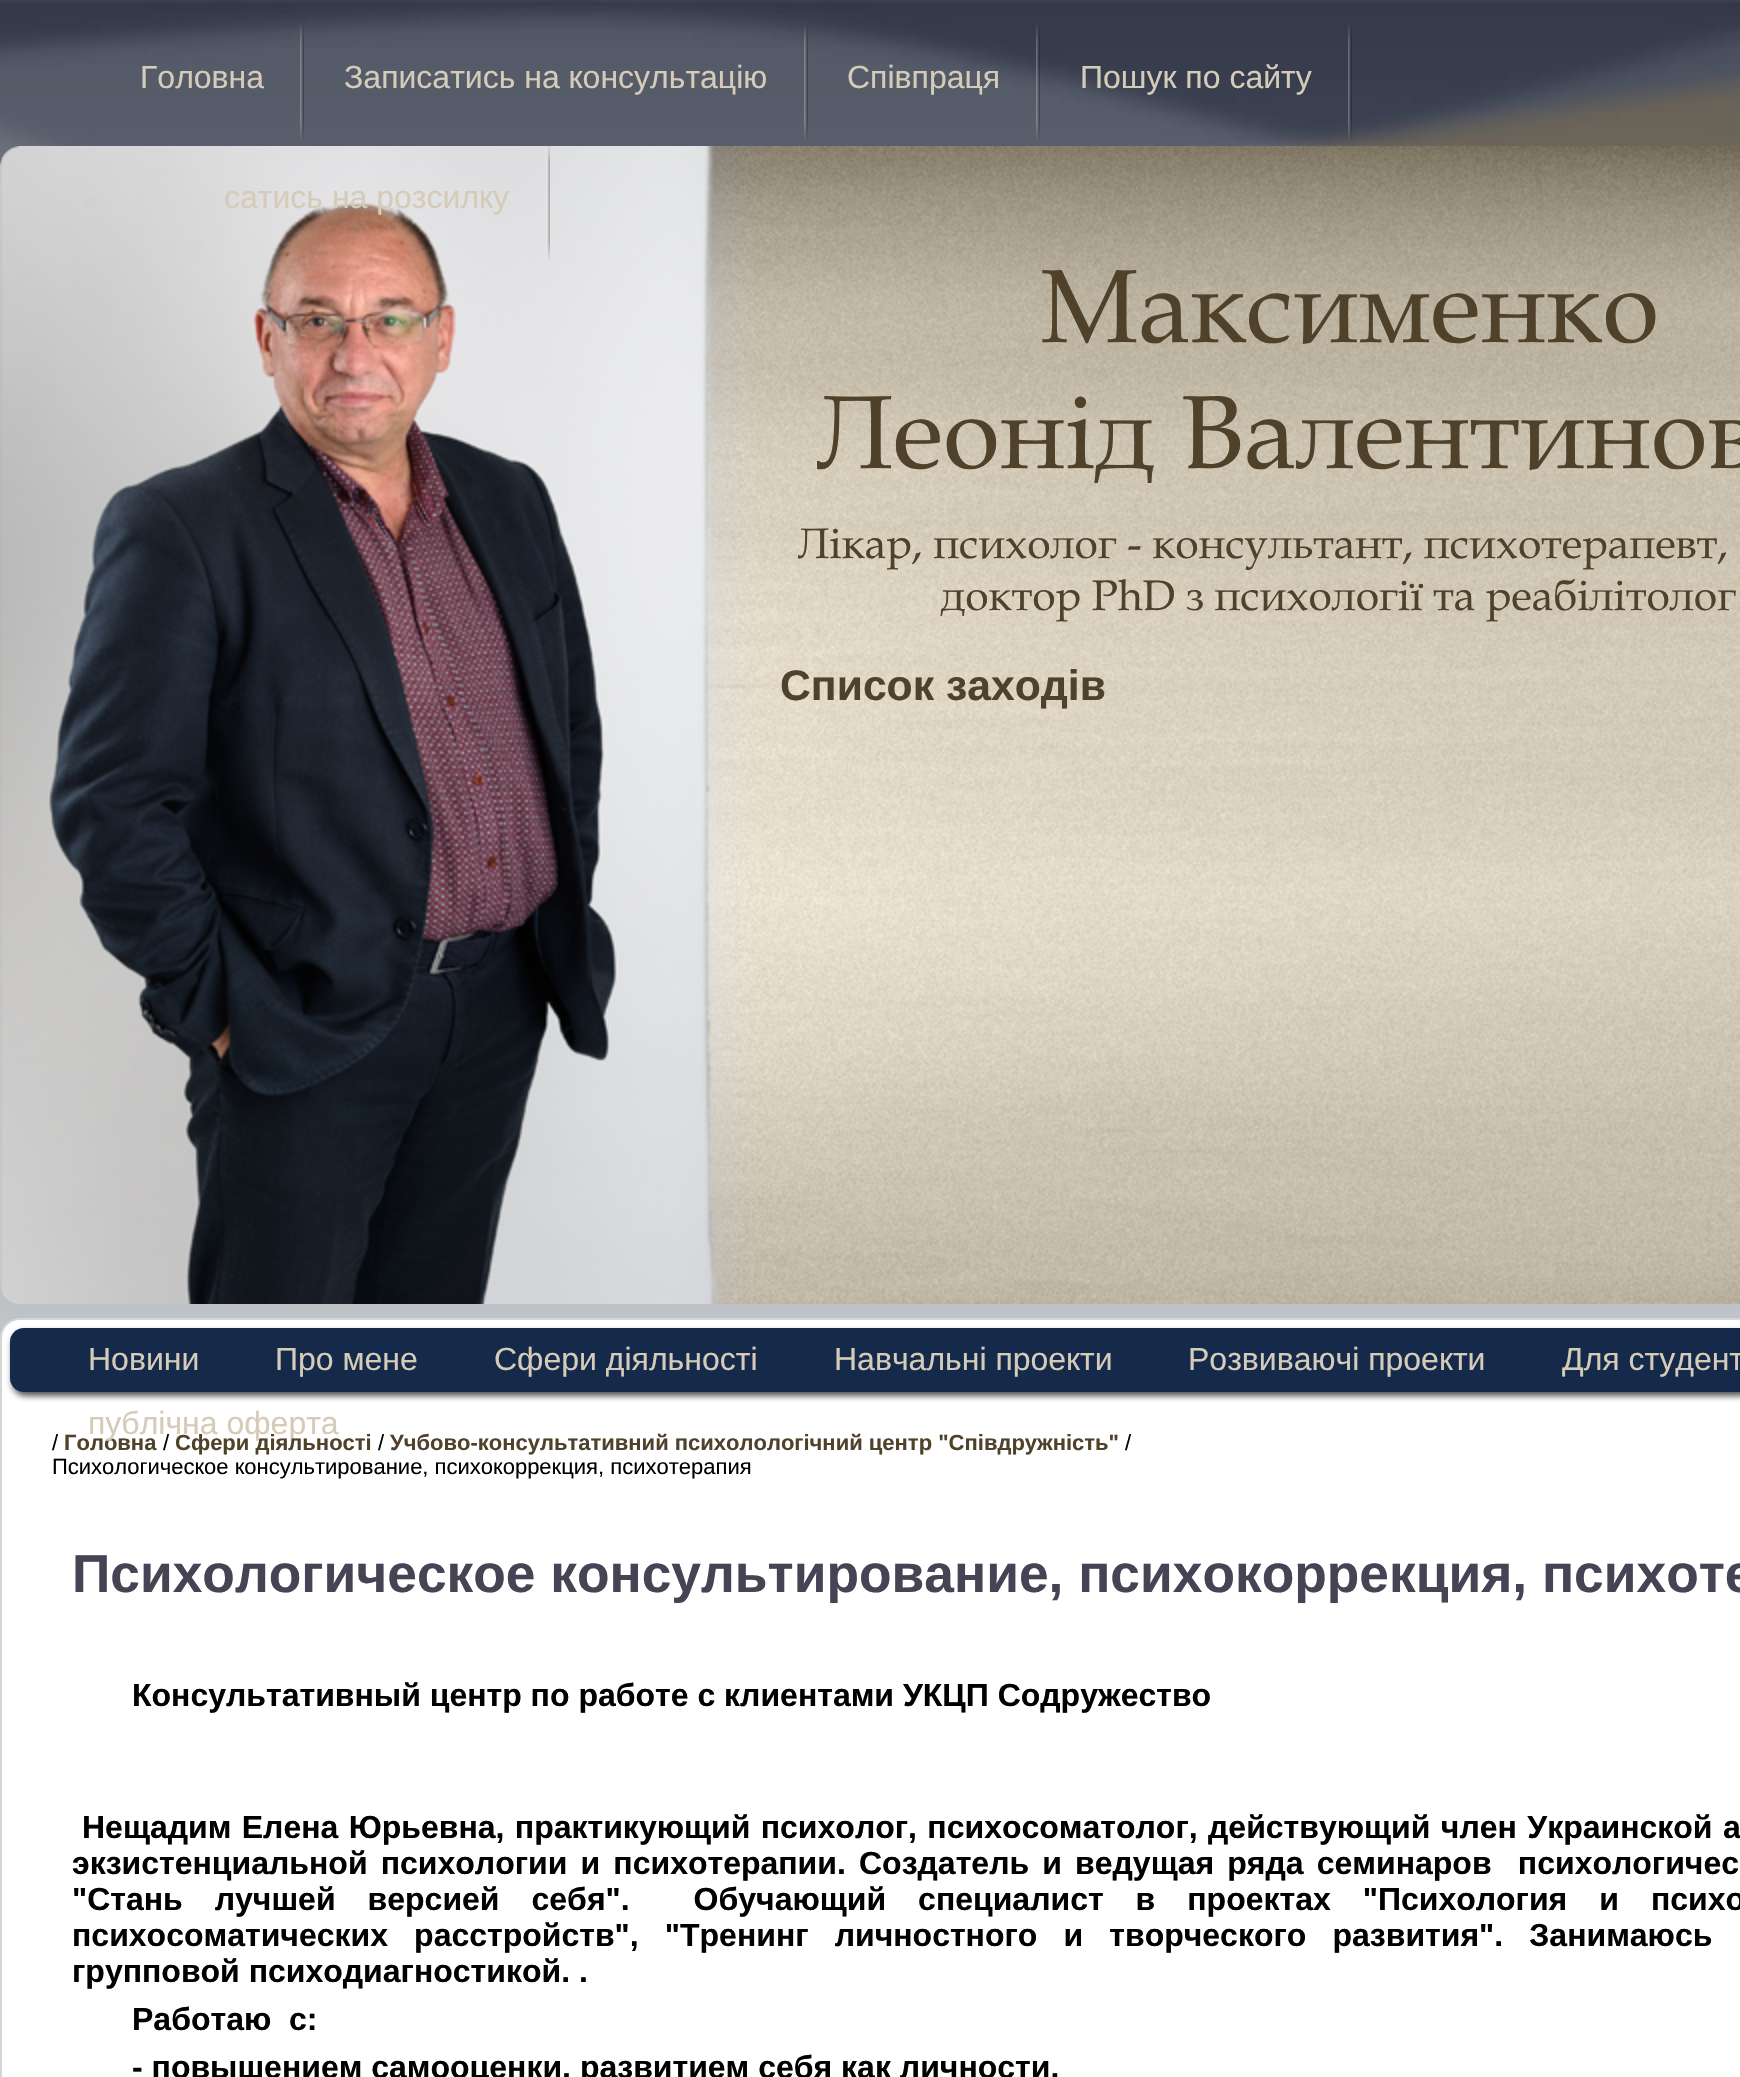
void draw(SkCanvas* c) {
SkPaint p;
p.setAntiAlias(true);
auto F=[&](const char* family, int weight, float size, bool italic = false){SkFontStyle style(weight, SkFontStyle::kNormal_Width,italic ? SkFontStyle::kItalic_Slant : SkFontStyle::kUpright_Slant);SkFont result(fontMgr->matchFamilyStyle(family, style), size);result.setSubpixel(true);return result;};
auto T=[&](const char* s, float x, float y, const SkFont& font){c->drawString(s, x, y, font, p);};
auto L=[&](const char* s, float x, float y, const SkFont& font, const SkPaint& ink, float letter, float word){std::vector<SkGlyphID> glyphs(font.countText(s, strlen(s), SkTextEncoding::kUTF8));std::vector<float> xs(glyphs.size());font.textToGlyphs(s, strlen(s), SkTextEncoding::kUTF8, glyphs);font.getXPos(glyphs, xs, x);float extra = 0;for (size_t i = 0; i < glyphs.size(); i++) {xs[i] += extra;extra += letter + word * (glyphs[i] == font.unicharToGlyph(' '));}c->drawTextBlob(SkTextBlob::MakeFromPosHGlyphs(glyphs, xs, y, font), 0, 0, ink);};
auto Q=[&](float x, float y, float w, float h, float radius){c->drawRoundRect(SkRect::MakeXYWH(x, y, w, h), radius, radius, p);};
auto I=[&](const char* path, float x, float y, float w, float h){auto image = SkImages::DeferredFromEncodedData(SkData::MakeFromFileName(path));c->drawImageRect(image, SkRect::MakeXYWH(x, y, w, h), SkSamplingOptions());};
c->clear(0xffffffff);
I("1.png",0,0,1740,1338);
I("2.png",300,23,4,117);
auto f1 = F("Liberation Sans",400,32);
p.setColor(0xffd5cbb9);
T("Головна",140,88,f1);
I("3.png",804,23,4,117);
T("Записатись на консультацію",344,88,f1);
I("4.png",1036,23,4,117);
T("Співпраця",847,88,f1);
I("5.png",1348,23,4,117);
T("Пошук по сайту",1080,88,f1);
I("7.png",0,146,1740,1158);
I("6.png",546,143,4,117);
T("сатись на розсилку",224,208,f1);
auto f2 = F("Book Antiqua",400,104);
p.setColor(0xff4f412a);
T("Максименко",1040,342,f2);
T("Леонід Валентинов",817,468,f2);
auto f3 = F("Book Antiqua",400,42.7);
T("Лікар, психолог - консультант, психотерапевт,",798,558,f3);
T("доктор PhD з психології та реабілітолог",941,610,f3);
auto f4 = F("Liberation Sans",700,42.7);
T("Список заходів",780,700,f4);
p.setColor(0xffffffff);
c->drawRoundRect(SkRect::MakeXYWH(1,1319,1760,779),19,19,p);
p.setStroke(true);
p.setStrokeWidth(2);
p.setColor(0xffd4d5d7);
c->drawRoundRect(SkRect::MakeXYWH(1,1319,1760,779),19,19,p);
p.setStroke(false);
p.setColor(0xb30a0a0a);
p.setMaskFilter(SkMaskFilter::MakeBlur(kNormal_SkBlurStyle, 3));
c->drawRoundRect(SkRect::MakeXYWH(12,1332,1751,64),14,14,p);
p.setMaskFilter(nullptr);
p.setColor(0xff15294b);
Q(10,1328,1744,64,14);
p.setColor(0xffd5cbb9);
T("Новини",88,1370,f1);
T("Про мене",275,1370,f1);
T("Сфери діяльності",494,1370,f1);
T("Навчальні проекти",834,1370,f1);
T("Розвиваючі проекти",1188,1370,f1);
T("Для студент",1562,1370,f1);
auto f5 = F("Liberation Sans",700,22);
p.setColor(0xff4f412a);
T("Головна",64,1450,f5);
auto f6 = F("Liberation Sans",400,22);
p.setColor(0xff000000);
T("/",163,1450,f6);
p.setColor(0xffd5cbb9);
T("публічна оферта",88,1434,f1);
p.setColor(0xff000000);
T("/",52,1450,f6);
p.setColor(0xff4f412a);
T("Сфери діяльності",175,1450,f5);
p.setColor(0xff000000);
T("/",378,1450,f6);
p.setColor(0xff4f412a);
T("Учбово-консультативний психолологічний центр \"Співдружність\"",390,1450,f5);
p.setColor(0xff000000);
T("/",1125,1450,f6);
T("Психологическое консультирование, психокоррекция, психотерапия",52,1474,f6);
auto f7 = F("Liberation Sans",700,53.3);
p.setColor(0xff444455);
T("Психологическое консультирование, психокоррекция, психоте",72,1592,f7);
auto f8 = F("Liberation Sans",700,32);
p.setColor(0xff000000);
T("Консультативный центр по работе с клиентами УКЦП Содружество",132,1706,f8);
L("Нещадим Елена Юрьевна, практикующий психолог, психосоматолог, действующий член Украинской а",82,1838,f8,p,0,1.5);
L("экзистенциальной психологии и психотерапии. Создатель и ведущая ряда семинаров  психологичес",72,1874,f8,p,0,4.25);
L("\"Стань лучшей версией себя\".  Обучающий специалист в проектах \"Психология и психо",72,1910,f8,p,0,23.1);
L("психосоматических расстройств\", \"Тренинг личностного и творческого развития\". Занимаюсь",72,1946,f8,p,0,17.25);
T("групповой психодиагностикой. .",72,1982,f8);
T("Работаю  с:",132,2030,f8);
T("- повышением самооценки, развитием себя как личности.",132,2078,f8);
}
